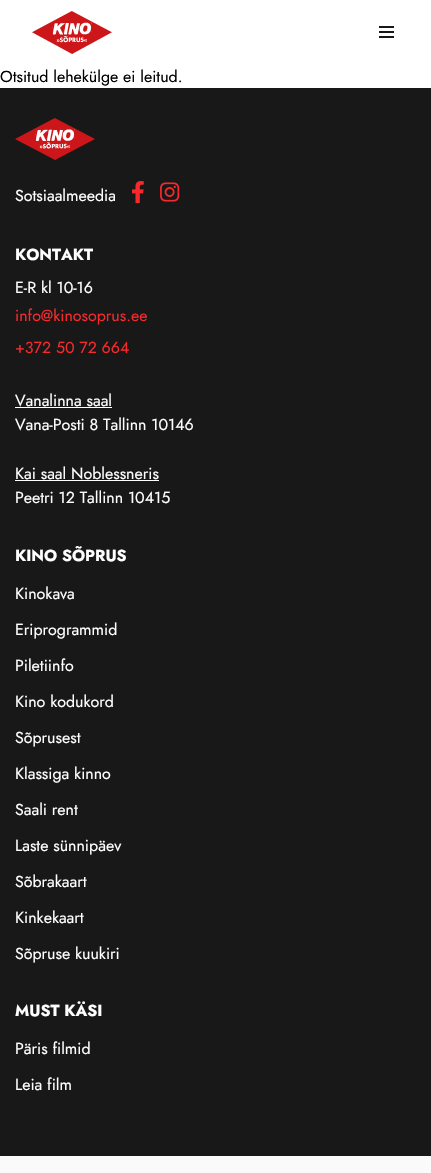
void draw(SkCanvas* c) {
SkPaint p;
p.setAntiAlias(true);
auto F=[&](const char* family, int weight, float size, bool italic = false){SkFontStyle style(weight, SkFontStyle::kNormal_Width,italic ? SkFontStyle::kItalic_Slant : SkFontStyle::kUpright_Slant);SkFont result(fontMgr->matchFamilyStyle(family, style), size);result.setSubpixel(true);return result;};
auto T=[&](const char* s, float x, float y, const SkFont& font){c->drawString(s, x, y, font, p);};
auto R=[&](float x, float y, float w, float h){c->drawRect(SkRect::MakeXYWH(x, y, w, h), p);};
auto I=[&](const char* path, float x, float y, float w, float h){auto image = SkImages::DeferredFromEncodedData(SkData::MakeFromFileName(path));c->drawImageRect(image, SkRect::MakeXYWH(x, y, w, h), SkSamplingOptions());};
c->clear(0xffffffff);
I("1.png",32,11,80,43);
p.setColor(0xff181818);
R(379,26,15,2);
R(379,31,15,2);
R(379,36,15,2);
auto f1 = F("Jost",400,16);
p.setColor(0xff000000);
T("Otsitud lehekülge ei leitud.",0,82,f1);
p.setColor(0xff181818);
R(0,88,431,1068);
I("2.png",15,118,80,42);
p.setColor(0xffffffff);
T("Sotsiaalmeedia",15,201,f1);
I("3.png",132,181,12,22);
I("4.png",160,182,20,20);
auto f2 = F("Jost",700,16);
T("KONTAKT",15,260,f2);
T("E-R kl 10-16",15,293,f1);
p.setColor(0xfff8292d);
T("info@kinosoprus.ee",15,321,f1);
T("+372 50 72 664",15,353,f1);
p.setColor(0xffffffff);
T("Vanalinna saal",15,406,f1);
R(15,407,97,1);
T("Vana-Posti 8 Tallinn 10146",15,430,f1);
T("Kai saal Noblessneris",15,479,f1);
R(15,480,144,1);
T("Peetri 12 Tallinn 10415",15,503,f1);
T("KINO SÕPRUS",15,561,f2);
T("Kinokava",15,599,f1);
T("Eriprogrammid",15,635,f1);
T("Piletiinfo",15,671,f1);
T("Kino kodukord",15,707,f1);
T("Sõprusest",15,743,f1);
T("Klassiga kinno",15,779,f1);
T("Saali rent",15,815,f1);
T("Laste sünnipäev",15,851,f1);
T("Sõbrakaart",15,887,f1);
T("Kinkekaart",15,923,f1);
T("Sõpruse kuukiri",15,959,f1);
T("MUST KÄSI",15,1016,f2);
T("Päris filmid",15,1054,f1);
T("Leia film",15,1090,f1);
p.setColor(0xfffafafa);
R(0,1156,431,17);
}
